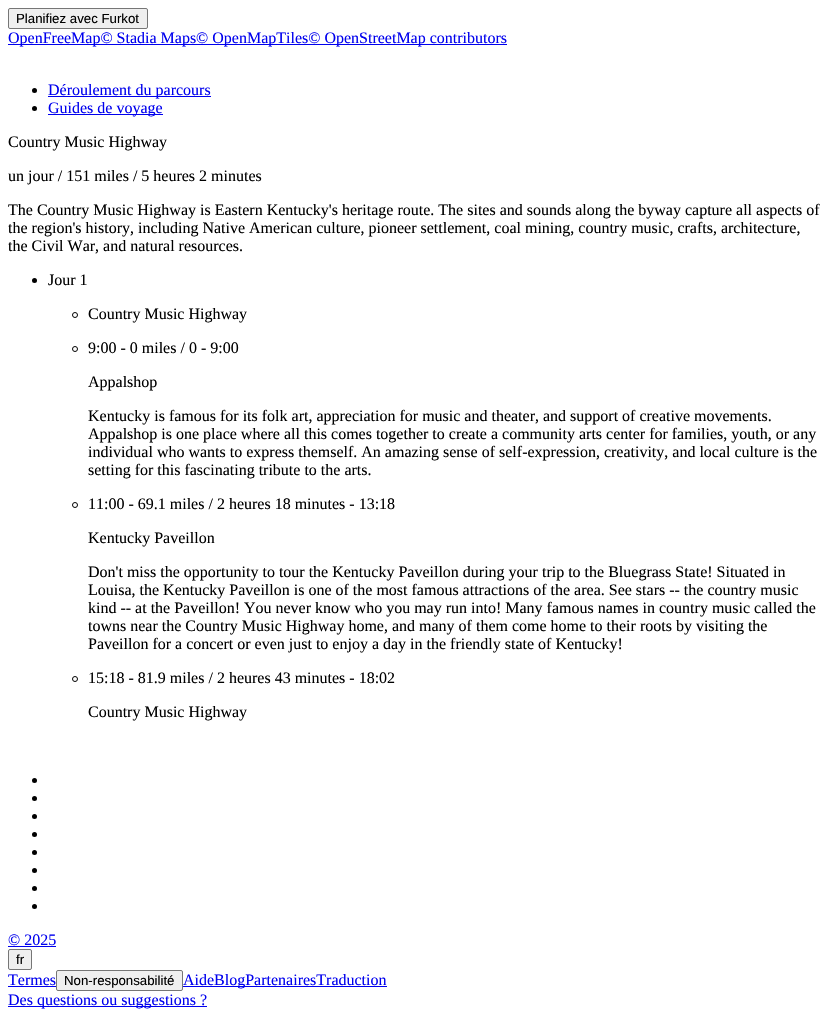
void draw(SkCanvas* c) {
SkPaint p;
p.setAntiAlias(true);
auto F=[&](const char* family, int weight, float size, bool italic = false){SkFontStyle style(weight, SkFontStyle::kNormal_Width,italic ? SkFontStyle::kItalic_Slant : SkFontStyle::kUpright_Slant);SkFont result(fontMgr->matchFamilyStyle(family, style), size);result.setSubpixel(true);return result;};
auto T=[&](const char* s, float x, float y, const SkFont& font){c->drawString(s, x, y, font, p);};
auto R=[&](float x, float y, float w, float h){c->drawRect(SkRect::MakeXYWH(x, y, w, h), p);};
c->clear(0xffffffff);
p.setColor(0xffefefef);
c->drawRoundRect(SkRect::MakeXYWH(8.5,8.5,139,20),1.5,1.5,p);
p.setStroke(true);
p.setStrokeWidth(1);
p.setColor(0xff767676);
c->drawRoundRect(SkRect::MakeXYWH(8.5,8.5,139,20),1.5,1.5,p);
auto f1 = F("Liberation Sans",400,13.25);
p.setStroke(false);
p.setColor(0xff000000);
T("Planifiez avec Furkot",16,23,f1);
p.setColor(0xff0000ee);
R(8,44,499,1);
auto f2 = F("Liberation Serif",400,16);
T("OpenFreeMap© Stadia Maps© OpenMapTiles© OpenStreetMap contributors",8,43,f2);
p.setColor(0xff000000);
c->drawCircle(34.5,90.5,2.5,p);
p.setColor(0xff0000ee);
R(48,96,163,1);
T("Déroulement du parcours",48,95,f2);
p.setColor(0xff000000);
c->drawCircle(34.5,108.5,2.5,p);
p.setColor(0xff0000ee);
R(48,114,115,1);
T("Guides de voyage",48,113,f2);
p.setColor(0xff000000);
T("Country Music Highway",8,147,f2);
T("un jour / 151 miles / 5 heures 2 minutes",8,181,f2);
T("The Country Music Highway is Eastern Kentucky's heritage route. The sites and sounds along the byway capture all aspects of",8,215,f2);
T("the region's history, including Native American culture, pioneer settlement, coal mining, country music, crafts, architecture,",8,233,f2);
T("the Civil War, and natural resources.",8,251,f2);
c->drawCircle(34.5,280.5,2.5,p);
T("Jour 1",48,285,f2);
p.setStroke(true);
c->drawCircle(75,315,2.5,p);
p.setStroke(false);
T("Country Music Highway",88,319,f2);
p.setStroke(true);
c->drawCircle(75,349,2.5,p);
p.setStroke(false);
T("9:00 - 0 miles / 0 - 9:00",88,353,f2);
T("Appalshop",88,387,f2);
T("Kentucky is famous for its folk art, appreciation for music and theater, and support of creative movements.",88,421,f2);
T("Appalshop is one place where all this comes together to create a community arts center for families, youth, or any",88,439,f2);
T("individual who wants to express themself. An amazing sense of self-expression, creativity, and local culture is the",88,457,f2);
T("setting for this fascinating tribute to the arts.",88,475,f2);
p.setStroke(true);
c->drawCircle(75,505,2.5,p);
p.setStroke(false);
T("11:00 - 69.1 miles / 2 heures 18 minutes - 13:18",88,509,f2);
T("Kentucky Paveillon",88,543,f2);
T("Don't miss the opportunity to tour the Kentucky Paveillon during your trip to the Bluegrass State! Situated in",88,577,f2);
T("Louisa, the Kentucky Paveillon is one of the most famous attractions of the area. See stars -- the country music",88,595,f2);
T("kind -- at the Paveillon! You never know who you may run into! Many famous names in country music called the",88,613,f2);
T("towns near the Country Music Highway home, and many of them come home to their roots by visiting the",88,631,f2);
T("Paveillon for a concert or even just to enjoy a day in the friendly state of Kentucky!",88,649,f2);
p.setStroke(true);
c->drawCircle(75,679,2.5,p);
p.setStroke(false);
T("15:18 - 81.9 miles / 2 heures 43 minutes - 18:02",88,683,f2);
T("Country Music Highway",88,717,f2);
c->drawCircle(34.5,780.5,2.5,p);
c->drawCircle(34.5,798.5,2.5,p);
c->drawCircle(34.5,816.5,2.5,p);
c->drawCircle(34.5,834.5,2.5,p);
c->drawCircle(34.5,852.5,2.5,p);
c->drawCircle(34.5,870.5,2.5,p);
c->drawCircle(34.5,888.5,2.5,p);
c->drawCircle(34.5,906.5,2.5,p);
p.setColor(0xff0000ee);
T("© 2025",8,945,f2);
R(8,946,48,1);
p.setColor(0xffefefef);
c->drawRoundRect(SkRect::MakeXYWH(8.5,949.5,23,20),1.5,1.5,p);
p.setStroke(true);
p.setColor(0xff767676);
c->drawRoundRect(SkRect::MakeXYWH(8.5,949.5,23,20),1.5,1.5,p);
p.setStroke(false);
p.setColor(0xff000000);
T("fr",16,964,f1);
p.setColor(0xff0000ee);
T("Termes",8,985,f2);
R(8,986,48,1);
p.setColor(0xffefefef);
c->drawRoundRect(SkRect::MakeXYWH(56.5,970.5,126,20),1.5,1.5,p);
p.setStroke(true);
p.setColor(0xff767676);
c->drawRoundRect(SkRect::MakeXYWH(56.5,970.5,126,20),1.5,1.5,p);
p.setStroke(false);
p.setColor(0xff000000);
T("Non-responsabilité",64,985,f1);
p.setColor(0xff0000ee);
R(183,986,62,1);
T("AideBlogPartenairesTraduction",183,985,f2);
R(245,986,142,1);
R(8,1006,199,1);
T("Des questions ou suggestions ?",8,1005,f2);
}
